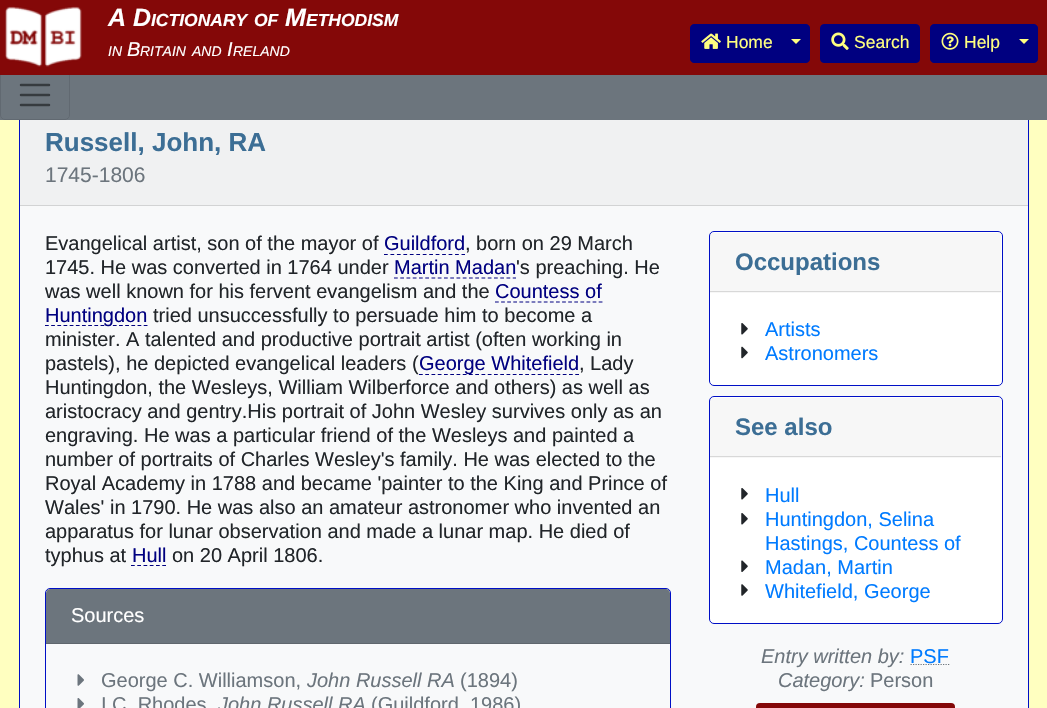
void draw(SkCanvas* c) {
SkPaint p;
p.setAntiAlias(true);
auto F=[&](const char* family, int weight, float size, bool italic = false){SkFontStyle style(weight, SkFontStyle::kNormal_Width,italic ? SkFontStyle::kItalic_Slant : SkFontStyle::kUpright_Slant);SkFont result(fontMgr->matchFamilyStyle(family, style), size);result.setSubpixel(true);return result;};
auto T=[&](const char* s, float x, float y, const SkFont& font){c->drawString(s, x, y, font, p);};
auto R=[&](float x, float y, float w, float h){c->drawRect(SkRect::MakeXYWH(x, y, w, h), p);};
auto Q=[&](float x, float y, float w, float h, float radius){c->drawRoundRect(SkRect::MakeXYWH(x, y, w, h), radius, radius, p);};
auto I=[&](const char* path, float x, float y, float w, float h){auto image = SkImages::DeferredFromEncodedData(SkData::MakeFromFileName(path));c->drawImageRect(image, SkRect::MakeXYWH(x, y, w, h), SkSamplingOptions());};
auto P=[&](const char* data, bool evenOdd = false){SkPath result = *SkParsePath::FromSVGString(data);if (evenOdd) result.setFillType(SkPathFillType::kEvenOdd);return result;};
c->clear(0xffffffc0);
p.setColor(0xfff8f9fa);
R(20,120,1008,588);
p.setStroke(true);
p.setStrokeWidth(1);
p.setColor(0xff000fc6);
c->drawRect(SkRect::MakeXYWH(19.5,111.5,1009,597),p);
p.setStroke(false);
p.setColor(0xff6c757d);
R(0,75,1047,45);
p.setStroke(true);
p.setColor(0xff616971);
c->drawRoundRect(SkRect::MakeXYWH(.5,70.5,69,49),4.5,4.5,p);
p.setStroke(false);
p.setColor(0xff840808);
R(0,0,1047,75);
I("1.png",5,6,77,61);
auto f1 = F("Liberation Sans",700,25,true);
p.setColor(0xffffffff);
T("A D",108,26,f1);
auto f2 = F("Liberation Sans",700,17.5,true);
T("ICTIONARY",151,26,f2);
T("OF",254,26,f2);
T("M",285,26,f1);
T("ETHODISM",306,26,f2);
auto f3 = F("Liberation Sans",400,14,true);
T("IN",108,56,f3);
auto f4 = F("Liberation Sans",400,20,true);
T("B",127,56,f4);
T("RITAIN",140,56,f3);
T("AND",192,56,f3);
T("I",227,56,f4);
T("RELAND",233,56,f3);
p.setColor(0xff000080);
c->drawPath(P("M694 24.5h89.5v38h-89.5c-2 0-3.5-1.5-3.5-3.5v-31c0-2 1.5-3.5 3.5-3.5z"),p);
p.setStroke(true);
c->drawPath(P("M694 24.5h89.5v38h-89.5c-2 0-3.5-1.5-3.5-3.5v-31c0-2 1.5-3.5 3.5-3.5z"),p);
I("2.png",701,33,20,16);
auto f5 = F("Liberation Sans",400,17.5);
p.setStroke(false);
p.setColor(0xffffff80);
T("Home",726,48,f5);
p.setColor(0xff000080);
c->drawPath(P("M783.5 24.5h22.5c2 0 3.5 1.5 3.5 3.5v31c0 2-1.5 3.5-3.5 3.5h-22.5z"),p);
p.setStroke(true);
c->drawPath(P("M783.5 24.5h22.5c2 0 3.5 1.5 3.5 3.5v31c0 2-1.5 3.5-3.5 3.5h-22.5z"),p);
p.setStroke(false);
p.setColor(0xffffff80);
c->drawPath(P("M791 39h10l-5 5z"),p);
p.setColor(0xff000080);
c->drawRoundRect(SkRect::MakeXYWH(820.5,24.5,99,38),3.5,3.5,p);
p.setStroke(true);
c->drawRoundRect(SkRect::MakeXYWH(820.5,24.5,99,38),3.5,3.5,p);
I("3.png",831,32,18,18);
p.setStroke(false);
p.setColor(0xffffff80);
T("Search",854,48,f5);
p.setColor(0xff000080);
c->drawPath(P("M934 24.5h76.5v38h-76.5c-2 0-3.5-1.5-3.5-3.5v-31c0-2 1.5-3.5 3.5-3.5z"),p);
p.setStroke(true);
c->drawPath(P("M934 24.5h76.5v38h-76.5c-2 0-3.5-1.5-3.5-3.5v-31c0-2 1.5-3.5 3.5-3.5z"),p);
I("4.png",941,32,18,18);
p.setStroke(false);
p.setColor(0xffffff80);
T("Help",964,48,f5);
p.setColor(0xff000080);
c->drawPath(P("M1010.5 24.5h23.5c2 0 3.5 1.5 3.5 3.5v31c0 2-1.5 3.5-3.5 3.5h-23.5z"),p);
p.setStroke(true);
c->drawPath(P("M1010.5 24.5h23.5c2 0 3.5 1.5 3.5 3.5v31c0 2-1.5 3.5-3.5 3.5h-23.5z"),p);
p.setStroke(false);
p.setColor(0xffffff80);
c->drawPath(P("M1019 39h10l-5 5z"),p);
p.setStroke(true);
p.setStrokeWidth(2.5);
p.setStrokeCap(SkPaint::kRound_Cap);
p.setColor(0xff363b3f);
c->drawPath(P("M21 85h28m-28 10h28m-28 10h28"),p);
p.setStroke(false);
p.setColor(0x08000000);
R(20,120,1008,85);
p.setColor(0xffd2d3d4);
R(20,205,1008,1);
auto f6 = F("Liberation Sans",700,26);
p.setColor(0xff3c6e95);
T("Russell, John, RA",45,151,f6);
auto f7 = F("Liberation Sans",400,21);
p.setColor(0xff6c757d);
T("1745-1806",45,182,f7);
auto f8 = F("Liberation Sans",400,20);
p.setColor(0xff212529);
T("Evangelical artist, son of the mayor of",45,250,f8);
p.setColor(0xff000080);
T("Guildford",384,250,f8);
p.setStroke(true);
p.setStrokeWidth(1.2);
p.setStrokeCap(SkPaint::kButt_Cap);
p.setPathEffect(SkDashPathEffect::Make({{3.75f,2.71f}}, 0));
c->drawPath(P("M384 254.5h81"),p);
p.setPathEffect(nullptr);
p.setStroke(false);
p.setColor(0xff212529);
T(", born on 29 March",465,250,f8);
T("1745. He was converted in 1764 under",45,274,f8);
p.setColor(0xff000080);
T("Martin Madan",394,274,f8);
p.setStroke(true);
p.setPathEffect(SkDashPathEffect::Make({{3.75f,2.5f}}, 0));
c->drawPath(P("M394 278h122"),p);
p.setPathEffect(nullptr);
p.setStroke(false);
p.setColor(0xff212529);
T("'s preaching. He",516,274,f8);
T("was well known for his fervent evangelism and the",45,298,f8);
p.setColor(0xff000080);
T("Countess of",495,298,f8);
p.setStroke(true);
p.setPathEffect(SkDashPathEffect::Make({{3.75f,2.35f}}, 0));
c->drawPath(P("M495 302h107.5"),p);
p.setPathEffect(nullptr);
p.setPathEffect(SkDashPathEffect::Make({{3.75f,2.42f}}, 0));
c->drawPath(P("M45 325.5h102.5"),p);
p.setPathEffect(nullptr);
p.setStroke(false);
T("Huntingdon",45,322,f8);
p.setColor(0xff212529);
T("tried unsuccessfully to persuade him to become a",153,322,f8);
T("minister. A talented and productive portrait artist (often working in",45,346,f8);
T("pastels), he depicted evangelical leaders (",45,370,f8);
p.setStroke(true);
p.setColor(0xff000080);
p.setPathEffect(SkDashPathEffect::Make({{3.75f,2.5f}}, 0));
c->drawPath(P("M419 374.5h160"),p);
p.setPathEffect(nullptr);
p.setStroke(false);
T("George Whitefield",419,370,f8);
p.setColor(0xff212529);
T(", Lady",579,370,f8);
T("Huntingdon, the Wesleys, William Wilberforce and others) as well as",45,394,f8);
T("aristocracy and gentry.His portrait of John Wesley survives only as an",45,418,f8);
T("engraving. He was a particular friend of the Wesleys and painted a",45,442,f8);
T("number of portraits of Charles Wesley's family. He was elected to the",45,466,f8);
T("Royal Academy in 1788 and became 'painter to the King and Prince of",45,490,f8);
T("Wales' in 1790. He was also an amateur astronomer who invented an",45,514,f8);
T("apparatus for lunar observation and made a lunar map. He died of",45,538,f8);
T("typhus at",45,562,f8);
p.setColor(0xff000080);
T("Hull",132,562,f8);
p.setStroke(true);
p.setPathEffect(SkDashPathEffect::Make({{3.75f,2.5f}}, 0));
c->drawPath(P("M131 565.5h35"),p);
p.setPathEffect(nullptr);
p.setStroke(false);
p.setColor(0xff212529);
T("on 20 April 1806.",172,562,f8);
p.setStroke(true);
p.setStrokeWidth(1);
p.setColor(0xff000fc6);
c->drawRoundRect(SkRect::MakeXYWH(45.5,588.5,625,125),4.5,4.5,p);
p.setStroke(false);
p.setColor(0xff6c757d);
c->drawPath(P("M50 589h616c2 0 4 2 4 4v51h-624v-51c0-2 2-4 4-4z"),p);
p.setColor(0xff5f666d);
R(46,643,624,1);
p.setColor(0xffffffff);
T("Sources",71,622,f8);
I("5.png",77,674,7,12);
p.setColor(0xff6c757d);
T("George C. Williamson,",101,687,f8);
T("John Russell RA",307,687,f4);
T("(1894)",460,687,f8);
I("6.png",77,698,7,10);
T("I.C. Rhodes",101,711,f8);
T("John Russell RA",218,711,f4);
T("(Guildford, 1986)",371,711,f8);
p.setColor(0xffffffff);
c->drawRoundRect(SkRect::MakeXYWH(709.5,231.5,293,154),4.5,4.5,p);
p.setStroke(true);
p.setColor(0xff000fc6);
c->drawRoundRect(SkRect::MakeXYWH(709.5,231.5,293,154),4.5,4.5,p);
p.setStroke(false);
p.setColor(0x08000000);
R(710,233,291,60);
p.setColor(0xffd8d8d8);
R(710,291,291,1);
auto f9 = F("Liberation Sans",700,24);
p.setColor(0xff3c6e95);
T("Occupations",735,270,f9);
I("7.png",741,323,7,12);
p.setColor(0xff007bff);
T("Artists",765,336,f8);
I("8.png",741,346,7,13);
T("Astronomers",765,360,f8);
p.setColor(0xffffffff);
c->drawRoundRect(SkRect::MakeXYWH(709.5,396.5,293,227),4.5,4.5,p);
p.setStroke(true);
p.setColor(0xff000fc6);
c->drawRoundRect(SkRect::MakeXYWH(709.5,396.5,293,227),4.5,4.5,p);
p.setStroke(false);
p.setColor(0x08000000);
R(710,398,291,60);
p.setColor(0xffd8d8d8);
R(710,456,291,1);
p.setColor(0xff3c6e95);
T("See also",735,435,f9);
I("7.png",741,488,7,12);
p.setColor(0xff007bff);
T("Hull",765,502,f8);
I("7.png",741,513,7,12);
T("Huntingdon, Selina",765,526,f8);
T("Hastings, Countess of",765,550,f8);
I("9.png",741,560,7,12);
T("Madan, Martin",765,574,f8);
I("10.png",741,584,7,12);
T("Whitefield, George",765,598,f8);
p.setColor(0xff6c757d);
T("Entry written by:",761,663,f4);
p.setStroke(true);
p.setStrokeWidth(1.2);
p.setPathEffect(SkDashPathEffect::Make({{1.25f,1.25f}}, 0));
c->drawPath(P("M910.5 664.5h39"),p);
p.setPathEffect(nullptr);
p.setStroke(false);
p.setColor(0xff007bff);
T("PSF",910,663,f8);
p.setColor(0xff6c757d);
T("Category:",778,687,f4);
T("Person",870,687,f8);
p.setColor(0xff840808);
Q(756,703,199,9,4);
}
